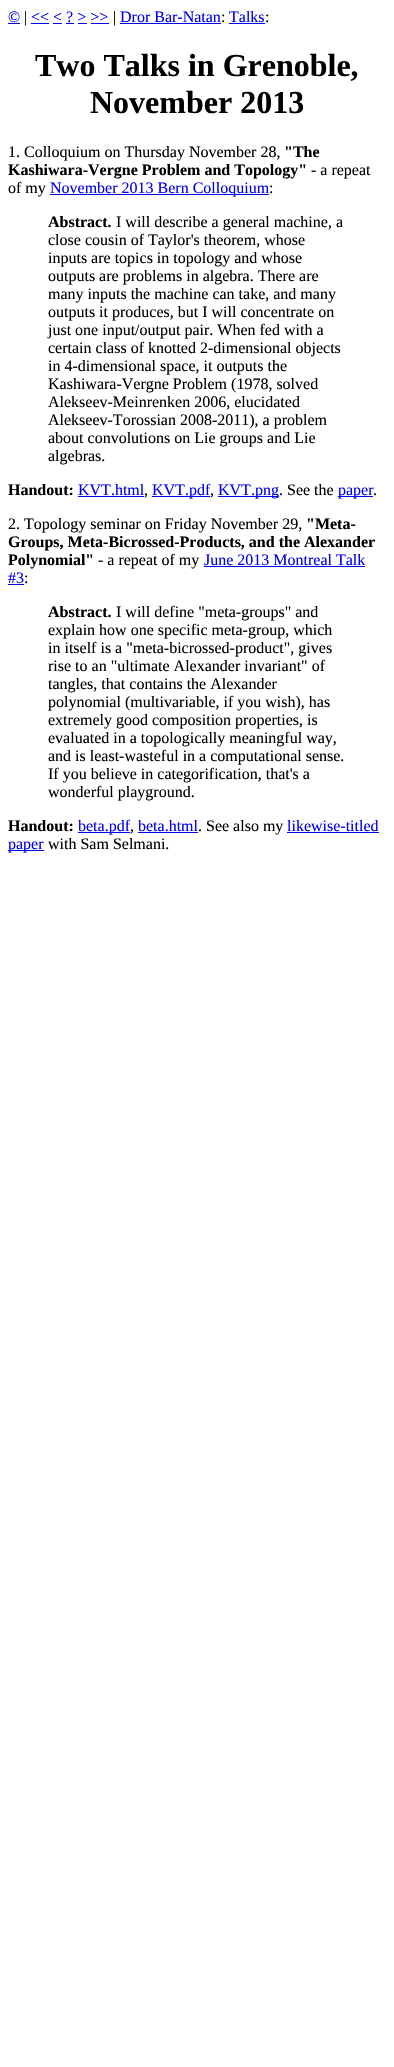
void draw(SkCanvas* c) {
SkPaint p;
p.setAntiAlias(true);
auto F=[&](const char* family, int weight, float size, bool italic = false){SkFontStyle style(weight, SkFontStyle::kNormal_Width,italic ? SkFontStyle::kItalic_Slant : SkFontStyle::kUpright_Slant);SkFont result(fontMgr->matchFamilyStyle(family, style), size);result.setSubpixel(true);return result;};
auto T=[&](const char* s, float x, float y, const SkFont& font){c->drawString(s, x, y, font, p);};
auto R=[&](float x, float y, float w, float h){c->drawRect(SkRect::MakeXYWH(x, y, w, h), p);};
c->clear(0xffffffff);
auto f1 = F("Liberation Serif",400,16);
p.setColor(0xff0000ee);
T("©",8,22,f1);
R(8,23,12,1);
p.setColor(0xff000000);
T("|",24,22,f1);
p.setColor(0xff0000ee);
T("<< < ? > >>",31,22,f1);
R(31,23,18,1);
p.setColor(0xff000000);
T("|",113,22,f1);
p.setColor(0xff0000ee);
T("Dror Bar-Natan",120,22,f1);
R(120,23,101,1);
p.setColor(0xff000000);
T(":",221,22,f1);
p.setColor(0xff0000ee);
T("Talks",229,22,f1);
R(229,23,36,1);
p.setColor(0xff000000);
T(":",265,22,f1);
p.setColor(0xff0000ee);
R(53,23,9,1);
R(66,23,8,1);
R(78,23,9,1);
R(91,23,18,1);
auto f2 = F("Liberation Serif",700,32);
p.setColor(0xff000000);
T("Two Talks in Grenoble,",35,76,f2);
T("November 2013",90,113,f2);
T("1. Colloquium on Thursday November 28,",8,157,f1);
auto f3 = F("Liberation Serif",700,16);
T("\"The",284,157,f3);
T("Kashiwara-Vergne Problem and Topology\"",8,175,f3);
T("- a repeat",311,175,f1);
T("of my",8,193,f1);
p.setColor(0xff0000ee);
R(50,194,219,1);
T("November 2013 Bern Colloquium",50,193,f1);
p.setColor(0xff000000);
T(":",269,193,f1);
T("Abstract.",48,227,f3);
T("I will describe a general machine, a",116,227,f1);
T("close cousin of Taylor's theorem, whose",48,245,f1);
T("inputs are topics in topology and whose",48,263,f1);
T("outputs are problems in algebra. There are",48,281,f1);
T("many inputs the machine can take, and many",48,299,f1);
T("outputs it produces, but I will concentrate on",48,317,f1);
T("just one input/output pair. When fed with a",48,335,f1);
T("certain class of knotted 2-dimensional objects",48,353,f1);
T("in 4-dimensional space, it outputs the",48,371,f1);
T("Kashiwara-Vergne Problem (1978, solved",48,389,f1);
T("Alekseev-Meinrenken 2006, elucidated",48,407,f1);
T("Alekseev-Torossian 2008-2011), a problem",48,425,f1);
T("about convolutions on Lie groups and Lie",48,443,f1);
T("algebras.",48,461,f1);
T("Handout:",8,495,f3);
p.setColor(0xff0000ee);
T("KVT.html",78,495,f1);
R(78,496,66,1);
p.setColor(0xff000000);
T(",",144,495,f1);
p.setColor(0xff0000ee);
R(152,496,58,1);
T("KVT.pdf",152,495,f1);
p.setColor(0xff000000);
T(",",210,495,f1);
p.setColor(0xff0000ee);
R(218,496,61,1);
T("KVT.png",218,495,f1);
p.setColor(0xff000000);
T(". See the",279,495,f1);
p.setColor(0xff0000ee);
R(338,496,35,1);
T("paper",338,495,f1);
p.setColor(0xff000000);
T(".",373,495,f1);
T("2. Topology seminar on Friday November 29,",8,529,f1);
T("\"Meta-",306,529,f3);
T("Groups, Meta-Bicrossed-Products, and the Alexander",8,547,f3);
T("Polynomial\"",8,565,f3);
T("- a repeat of my",98,565,f1);
p.setColor(0xff0000ee);
T("June 2013 Montreal Talk",204,565,f1);
R(204,566,161,1);
T("#3",8,583,f1);
R(8,584,16,1);
p.setColor(0xff000000);
T(":",24,583,f1);
T("Abstract.",48,617,f3);
T("I will define \"meta-groups\" and",116,617,f1);
T("explain how one specific meta-group, which",48,635,f1);
T("in itself is a \"meta-bicrossed-product\", gives",48,653,f1);
T("rise to an \"ultimate Alexander invariant\" of",48,671,f1);
T("tangles, that contains the Alexander",48,689,f1);
T("polynomial (multivariable, if you wish), has",48,707,f1);
T("extremely good composition properties, is",48,725,f1);
T("evaluated in a topologically meaningful way,",48,743,f1);
T("and is least-wasteful in a computational sense.",48,761,f1);
T("If you believe in categorification, that's a",48,779,f1);
T("wonderful playground.",48,797,f1);
T("Handout:",8,831,f3);
p.setColor(0xff0000ee);
R(78,832,52,1);
T("beta.pdf",78,831,f1);
p.setColor(0xff000000);
T(",",130,831,f1);
p.setColor(0xff0000ee);
T("beta.html",138,831,f1);
R(138,832,60,1);
p.setColor(0xff000000);
T(". See also my",198,831,f1);
p.setColor(0xff0000ee);
T("likewise-titled",287,831,f1);
R(287,832,92,1);
R(8,850,36,1);
T("paper",8,849,f1);
p.setColor(0xff000000);
T("with Sam Selmani.",48,849,f1);
}
